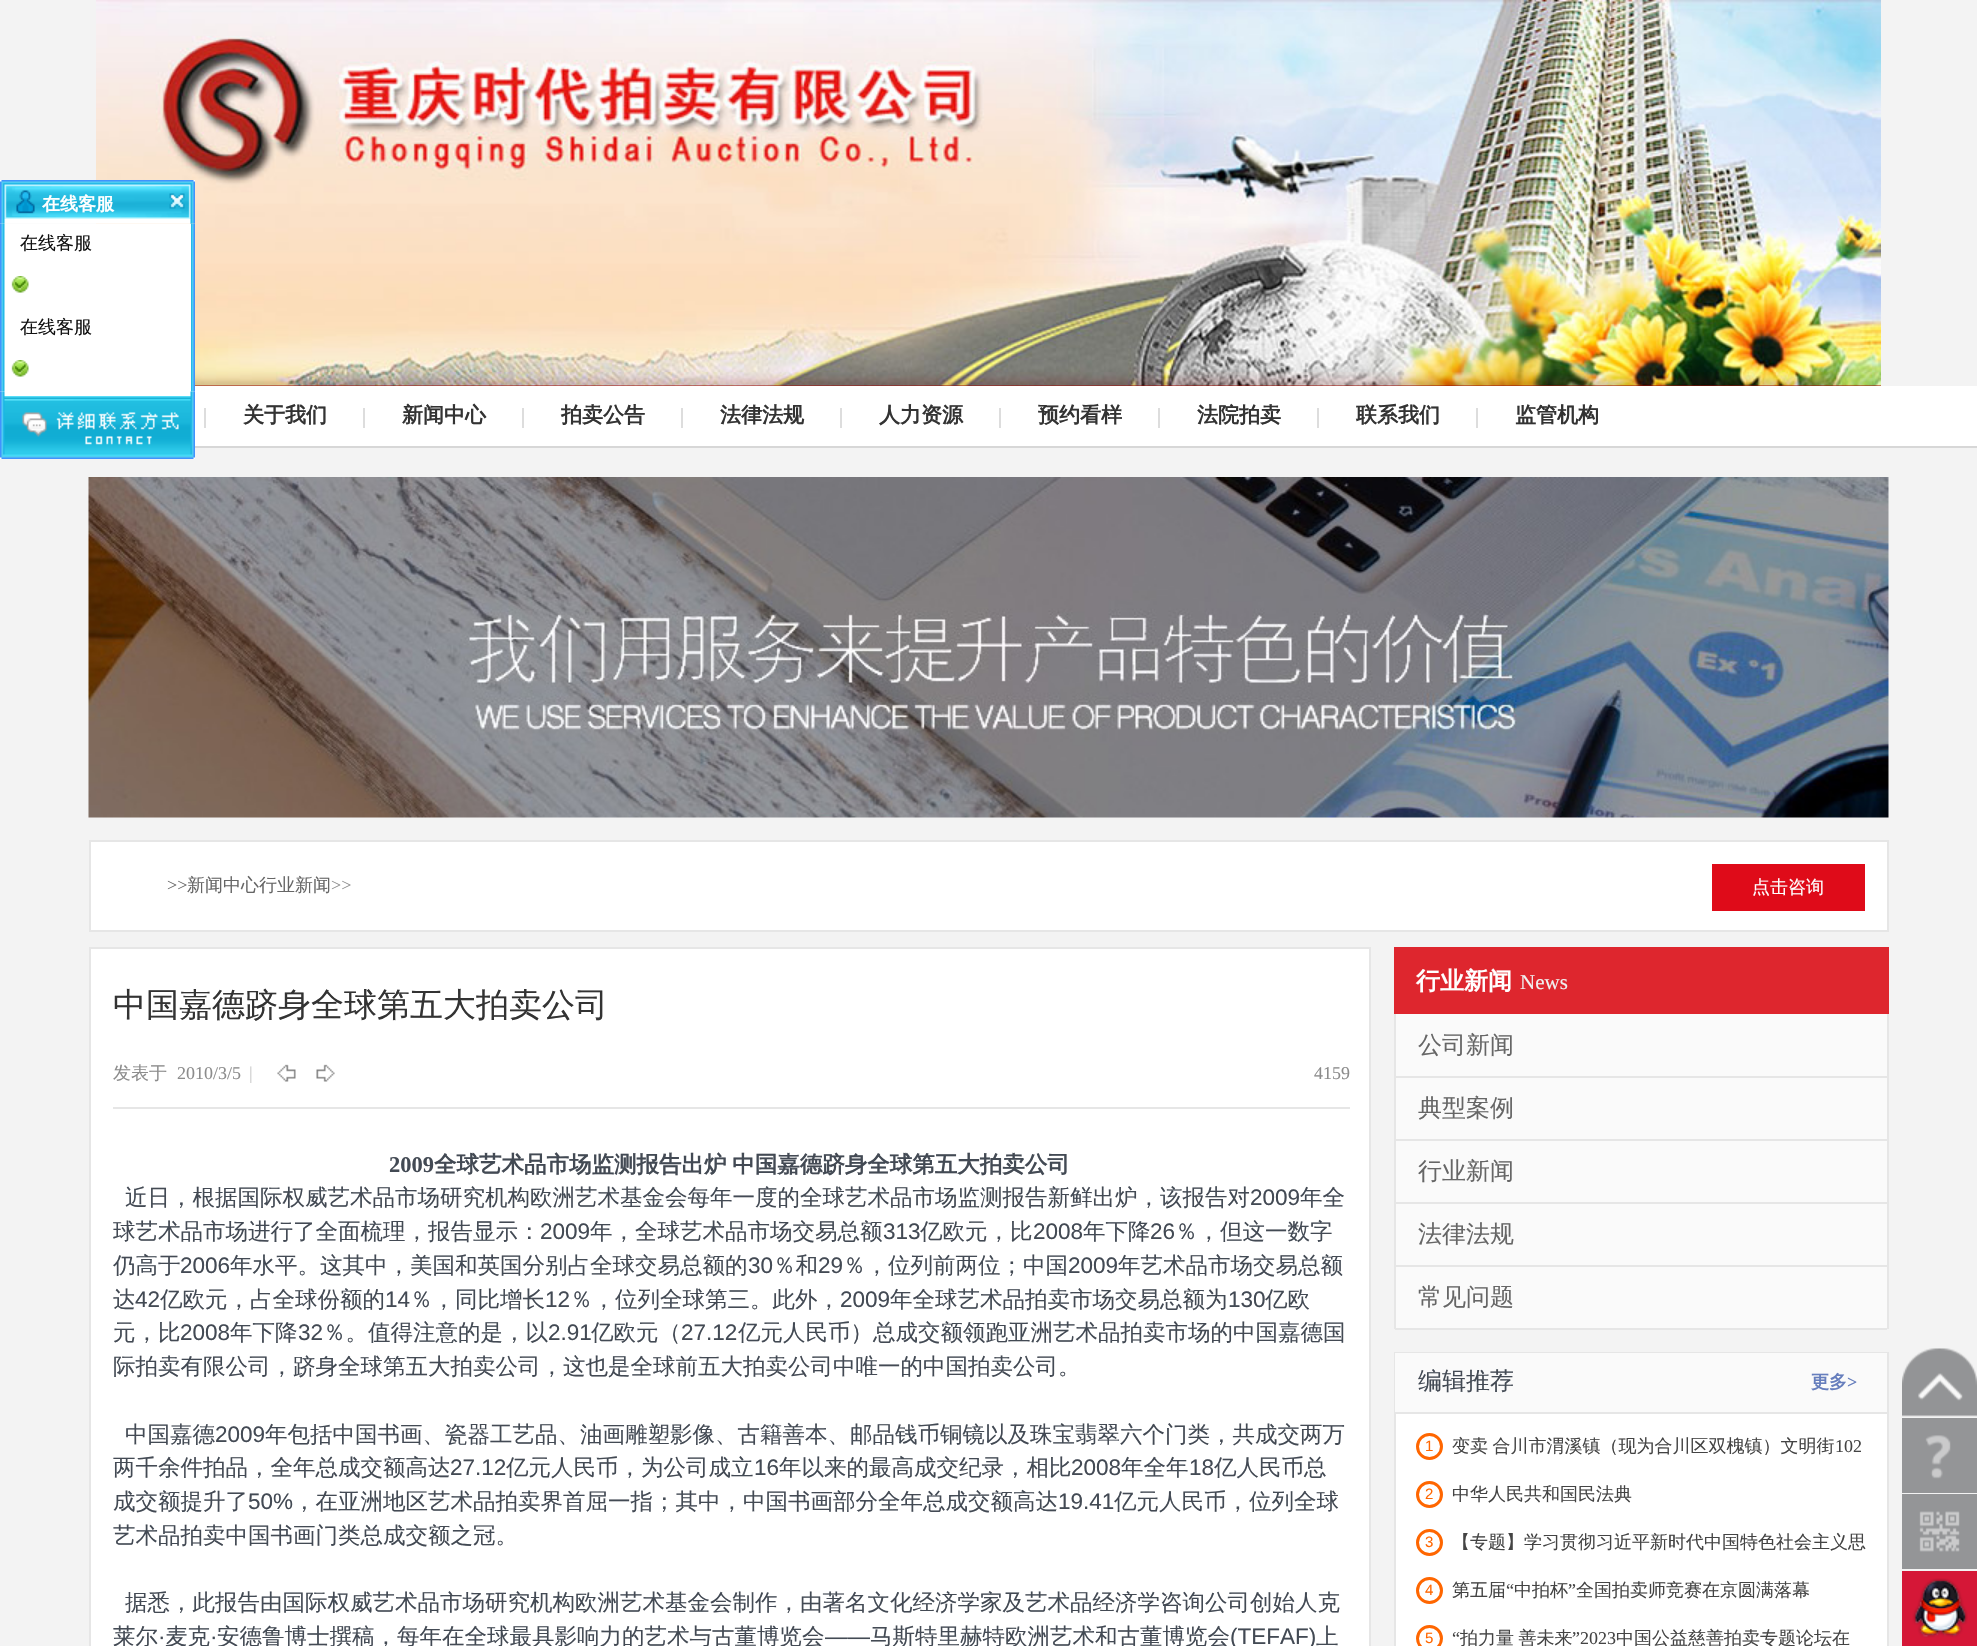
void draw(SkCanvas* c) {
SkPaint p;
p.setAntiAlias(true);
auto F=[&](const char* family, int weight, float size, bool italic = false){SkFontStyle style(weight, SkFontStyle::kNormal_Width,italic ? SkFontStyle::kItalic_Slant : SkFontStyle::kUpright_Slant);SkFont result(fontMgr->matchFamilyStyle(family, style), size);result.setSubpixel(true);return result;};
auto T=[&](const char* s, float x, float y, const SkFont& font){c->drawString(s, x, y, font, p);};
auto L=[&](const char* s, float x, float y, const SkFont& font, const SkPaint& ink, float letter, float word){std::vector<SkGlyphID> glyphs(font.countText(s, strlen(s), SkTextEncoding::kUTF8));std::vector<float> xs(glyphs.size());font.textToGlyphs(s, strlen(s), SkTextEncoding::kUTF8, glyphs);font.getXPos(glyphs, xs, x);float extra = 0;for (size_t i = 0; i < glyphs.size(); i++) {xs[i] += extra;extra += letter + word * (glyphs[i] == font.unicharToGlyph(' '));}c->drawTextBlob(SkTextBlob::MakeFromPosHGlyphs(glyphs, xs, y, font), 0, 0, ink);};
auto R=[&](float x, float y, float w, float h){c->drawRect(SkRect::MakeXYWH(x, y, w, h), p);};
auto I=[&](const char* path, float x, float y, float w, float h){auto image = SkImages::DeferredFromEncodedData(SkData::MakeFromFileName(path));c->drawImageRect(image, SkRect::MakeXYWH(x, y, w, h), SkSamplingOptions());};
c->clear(0xfff3f3f3);
p.setColor(0xffa40a03);
R(195,385,1686,1);
I("8.png",96,0,1785,386);
I("1.png",0,180,195,39);
auto f1 = F("WenQuanYi Zen Hei",700,18);
p.setColor(0xffffffff);
T("在线客服",42,210,f1);
I("2.png",169,193,16,16);
I("3.png",0,219,195,5);
R(0,386,1977,60);
I("4.png",0,223,195,169);
R(190,224,1,168);
auto f2 = F("WenQuanYi Zen Hei",500,18);
p.setColor(0xff111111);
T("在线客服",20,249,f2);
I("5.png",11,276,18,17);
T("在线客服",20,333,f2);
I("5.png",11,360,18,17);
I("6.png",0,391,195,5);
I("7.png",0,396,195,63);
p.setColor(0xffd7d7d7);
R(195,446,1782,2);
p.setColor(0xffdddddd);
R(204,408,2,20);
auto f3 = F("WenQuanYi Zen Hei",700,21);
p.setColor(0xff333333);
T("关于我们",243,422,f3);
p.setColor(0xffdddddd);
R(363,408,2,20);
p.setColor(0xff333333);
T("新闻中心",402,422,f3);
p.setColor(0xffdddddd);
R(522,408,2,20);
p.setColor(0xff333333);
T("拍卖公告",561,422,f3);
p.setColor(0xffdddddd);
R(681,408,2,20);
p.setColor(0xff333333);
T("法律法规",720,422,f3);
p.setColor(0xffdddddd);
R(840,408,2,20);
p.setColor(0xff333333);
T("人力资源",879,422,f3);
p.setColor(0xffdddddd);
R(999,408,2,20);
p.setColor(0xff333333);
T("预约看样",1038,422,f3);
p.setColor(0xffdddddd);
R(1158,408,2,20);
p.setColor(0xff333333);
T("法院拍卖",1197,422,f3);
p.setColor(0xffdddddd);
R(1317,408,2,20);
p.setColor(0xff333333);
T("联系我们",1356,422,f3);
p.setColor(0xffdddddd);
R(1476,408,2,20);
p.setColor(0xff333333);
T("监管机构",1515,422,f3);
I("9.png",88,477,1801,341);
p.setColor(0xffffffff);
c->drawRect(SkRect::MakeXYWH(90,841,1798,90),p);
p.setStroke(true);
p.setStrokeWidth(2);
p.setColor(0xffe6e6e6);
c->drawRect(SkRect::MakeXYWH(90,841,1798,90),p);
auto f4 = F("Liberation Serif",400,18);
p.setStroke(false);
p.setColor(0xff666666);
T(">>",167,891,f4);
T("新闻中心行业新闻",187,891,f2);
p.setColor(0xff8c8c8c);
T(">>",331,891,f4);
p.setColor(0xffdf0b19);
R(1712,864,153,47);
p.setColor(0xffffffff);
T("点击咨询",1752,893,f2);
c->drawRect(SkRect::MakeXYWH(90,948,1280,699),p);
p.setStroke(true);
p.setColor(0xffe6e6e6);
c->drawRect(SkRect::MakeXYWH(90,948,1280,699),p);
auto f5 = F("WenQuanYi Zen Hei",500,33);
p.setStroke(false);
p.setColor(0xff333333);
T("中国嘉德跻身全球第五大拍卖公司",113,1016,f5);
p.setColor(0xffe6e6e6);
R(113,1107,1237,2);
p.setColor(0xff8c8c8c);
T("发表于",113,1079,f2);
T("2010/3/5",177,1079,f4);
p.setColor(0xffcccccc);
T("|",249,1079,f4);
I("10.png",277,1064,19,18);
I("11.png",316,1064,19,18);
p.setColor(0xff8c8c8c);
T("4159",1314,1079,f4);
auto f6 = F("Liberation Serif",700,22.5);
p.setColor(0xff434a54);
T("2009",389,1172,f6);
auto f7 = F("WenQuanYi Zen Hei",700,22.5);
L("全球艺术品市场监测报告出炉 中国嘉德跻身全球第五大拍卖公司",434,1172,f7,p,0,-1);
auto f8 = F("WenQuanYi Zen Hei",500,22.5);
T("近日，根据国际权威艺术品市场研究机构欧洲艺术基金会每年一度的全球艺术品市场监测报告新鲜出炉，该报告对",125,1205,f8);
auto f9 = F("Liberation Sans",400,22.5);
T("2009",1250,1205,f9);
T("年全",1300,1205,f8);
T("球艺术品市场进行了全面梳理，报告显示：",113,1239,f8);
T("2009",540,1239,f9);
T("年，全球艺术品市场交易总额",590,1239,f8);
T("313",883,1239,f9);
T("亿欧元，比",920,1239,f8);
T("2008",1033,1239,f9);
T("年下降",1083,1239,f8);
T("26",1150,1239,f9);
T("％，但这一数字",1175,1239,f8);
T("仍高于",113,1273,f8);
T("2006",180,1273,f9);
T("年水平。这其中，美国和英国分别占全球交易总额的",230,1273,f8);
T("30",748,1273,f9);
T("％和",773,1273,f8);
T("29",818,1273,f9);
T("％，位列前两位；中国",843,1273,f8);
T("2009",1068,1273,f9);
T("年艺术品市场交易总额",1118,1273,f8);
T("达",113,1307,f8);
T("42",135,1307,f9);
T("亿欧元，占全球份额的",160,1307,f8);
T("14",385,1307,f9);
T("％，同比增长",410,1307,f8);
T("12",545,1307,f9);
T("％，位列全球第三。此外，",570,1307,f8);
T("2009",840,1307,f9);
T("年全球艺术品拍卖市场交易总额为",890,1307,f8);
T("130",1228,1307,f9);
T("亿欧",1265,1307,f8);
T("元，比",113,1340,f8);
T("2008",180,1340,f9);
T("年下降",230,1340,f8);
T("32",298,1340,f9);
T("％。值得注意的是，以",323,1340,f8);
T("2.91",548,1340,f9);
T("亿欧元（",591,1340,f8);
T("27.12",681,1340,f9);
T("亿元人民币）总成交额领跑亚洲艺术品拍卖市场的中国嘉德国",738,1340,f8);
T("际拍卖有限公司，跻身全球第五大拍卖公司，这也是全球前五大拍卖公司中唯一的中国拍卖公司。",113,1374,f8);
T("中国嘉德",125,1442,f8);
T("2009",215,1442,f9);
T("年包括中国书画、瓷器工艺品、油画雕塑影像、古籍善本、邮品钱币铜镜以及珠宝翡翠六个门类，共成交两万",265,1442,f8);
T("两千余件拍品，全年总成交额高达",113,1475,f8);
T("27.12",450,1475,f9);
T("亿元人民币，为公司成立",506,1475,f8);
T("16",754,1475,f9);
T("年以来的最高成交纪录，相比",779,1475,f8);
T("2008",1071,1475,f9);
T("年全年",1121,1475,f8);
T("18",1189,1475,f9);
T("亿人民币总",1214,1475,f8);
T("成交额提升了",113,1509,f8);
T("50%",248,1509,f9);
T("，在亚洲地区艺术品拍卖界首屈一指；其中，中国书画部分全年总成交额高达",293,1509,f8);
T("19.41",1058,1509,f9);
T("亿元人民币，位列全球",1114,1509,f8);
T("艺术品拍卖中国书画门类总成交额之冠。",113,1543,f8);
T("据悉，此报告由国际权威艺术品市场研究机构欧洲艺术基金会制作，由著名文化经济学家及艺术品经济学咨询公司创始人克",125,1610,f8);
T("莱尔",113,1644,f8);
T("·",158,1644,f9);
T("麦克",165,1644,f8);
T("·",210,1644,f9);
T("安德鲁博士撰稿，每年在全球最具影响力的艺术与古董博览会",217,1644,f8);
T("——",825,1644,f9);
T("马斯特里赫特欧洲艺术和古董博览会",870,1644,f8);
T("(TEFAF)",1230,1644,f9);
T("上",1316,1644,f8);
p.setColor(0xfffafafa);
R(1396,1014,491,314);
p.setColor(0xffde262e);
R(1394,947,495,67);
auto f10 = F("WenQuanYi Zen Hei",700,24);
p.setColor(0xffffffff);
T("行业新闻",1416,989,f10);
auto f11 = F("Liberation Serif",400,21);
p.setColor(0xfff0f0f0);
T("News",1520,989,f11);
p.setColor(0xffe6e6e6);
R(1887,1014,2,315);
R(1394,1014,2,315);
R(1395,1076,492,2);
auto f12 = F("WenQuanYi Zen Hei",500,24);
p.setColor(0xff666666);
T("公司新闻",1418,1053,f12);
p.setColor(0xffe6e6e6);
R(1395,1139,492,2);
p.setColor(0xff666666);
T("典型案例",1418,1116,f12);
p.setColor(0xffe6e6e6);
R(1395,1202,492,2);
p.setColor(0xff666666);
T("行业新闻",1418,1179,f12);
p.setColor(0xffe6e6e6);
R(1395,1265,492,2);
p.setColor(0xff666666);
T("法律法规",1418,1242,f12);
p.setColor(0xffe6e6e6);
R(1395,1328,492,2);
p.setColor(0xff666666);
T("常见问题",1418,1305,f12);
p.setColor(0xffffffff);
R(1396,1414,491,232);
p.setStroke(true);
p.setColor(0xffe6e6e6);
c->drawRect(SkRect::MakeXYWH(1395,1353,493,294),p);
p.setStroke(false);
p.setColor(0xfffafafa);
R(1395,1353,492,59);
p.setColor(0xffe6e6e6);
R(1395,1412,492,2);
p.setColor(0xff434a54);
T("编辑推荐",1418,1389,f12);
p.setColor(0xff667ebd);
T("更多",1811,1388,f1);
auto f13 = F("Liberation Serif",700,18);
T(">",1847,1388,f13);
p.setStroke(true);
p.setStrokeWidth(3);
p.setColor(0xffff6600);
c->drawCircle(1429.5,1446.5,12,p);
auto f14 = F("Liberation Sans",400,15);
p.setStroke(false);
T("1",1425,1451,f14);
p.setColor(0xff444444);
L("变卖 合川市渭溪镇（现为合川区双槐镇）文明街",1452,1452,f2,p,0,-1);
T("102",1835,1452,f4);
p.setStroke(true);
p.setColor(0xffff6600);
c->drawCircle(1429.5,1494.5,12,p);
p.setStroke(false);
T("2",1425,1499,f14);
p.setColor(0xff444444);
T("中华人民共和国民法典",1452,1500,f2);
p.setStroke(true);
p.setColor(0xffff6600);
c->drawCircle(1429.5,1542.5,12,p);
p.setStroke(false);
T("3",1425,1547,f14);
p.setColor(0xff444444);
T("【专题】学习贯彻习近平新时代中国特色社会主义思",1452,1548,f2);
p.setStroke(true);
p.setColor(0xffff6600);
c->drawCircle(1429.5,1590.5,12,p);
p.setStroke(false);
T("4",1425,1595,f14);
p.setColor(0xff444444);
T("第五届",1452,1596,f2);
T("“",1506,1596,f4);
T("中拍杯",1514,1596,f2);
T("”",1568,1596,f4);
T("全国拍卖师竞赛在京圆满落幕",1576,1596,f2);
p.setStroke(true);
p.setColor(0xffff6600);
c->drawCircle(1429.5,1638.5,12,p);
p.setStroke(false);
T("5",1425,1643,f14);
p.setColor(0xff444444);
T("“",1452,1644,f4);
L("拍力量 善未来",1460,1644,f2,p,0,-1);
T("”2023",1572,1644,f4);
T("中国公益慈善拍卖专题论坛在",1616,1644,f2);
I("12.png",1902,1348,75,69);
p.setColor(0xff949597);
R(1902,1418,75,75);
I("13.png",1925,1435,26,44);
R(1902,1494,75,75);
I("14.png",1919,1511,41,41);
p.setColor(0xffd51737);
R(1902,1571,75,75);
I("15.png",1912,1578,56,60);
}
